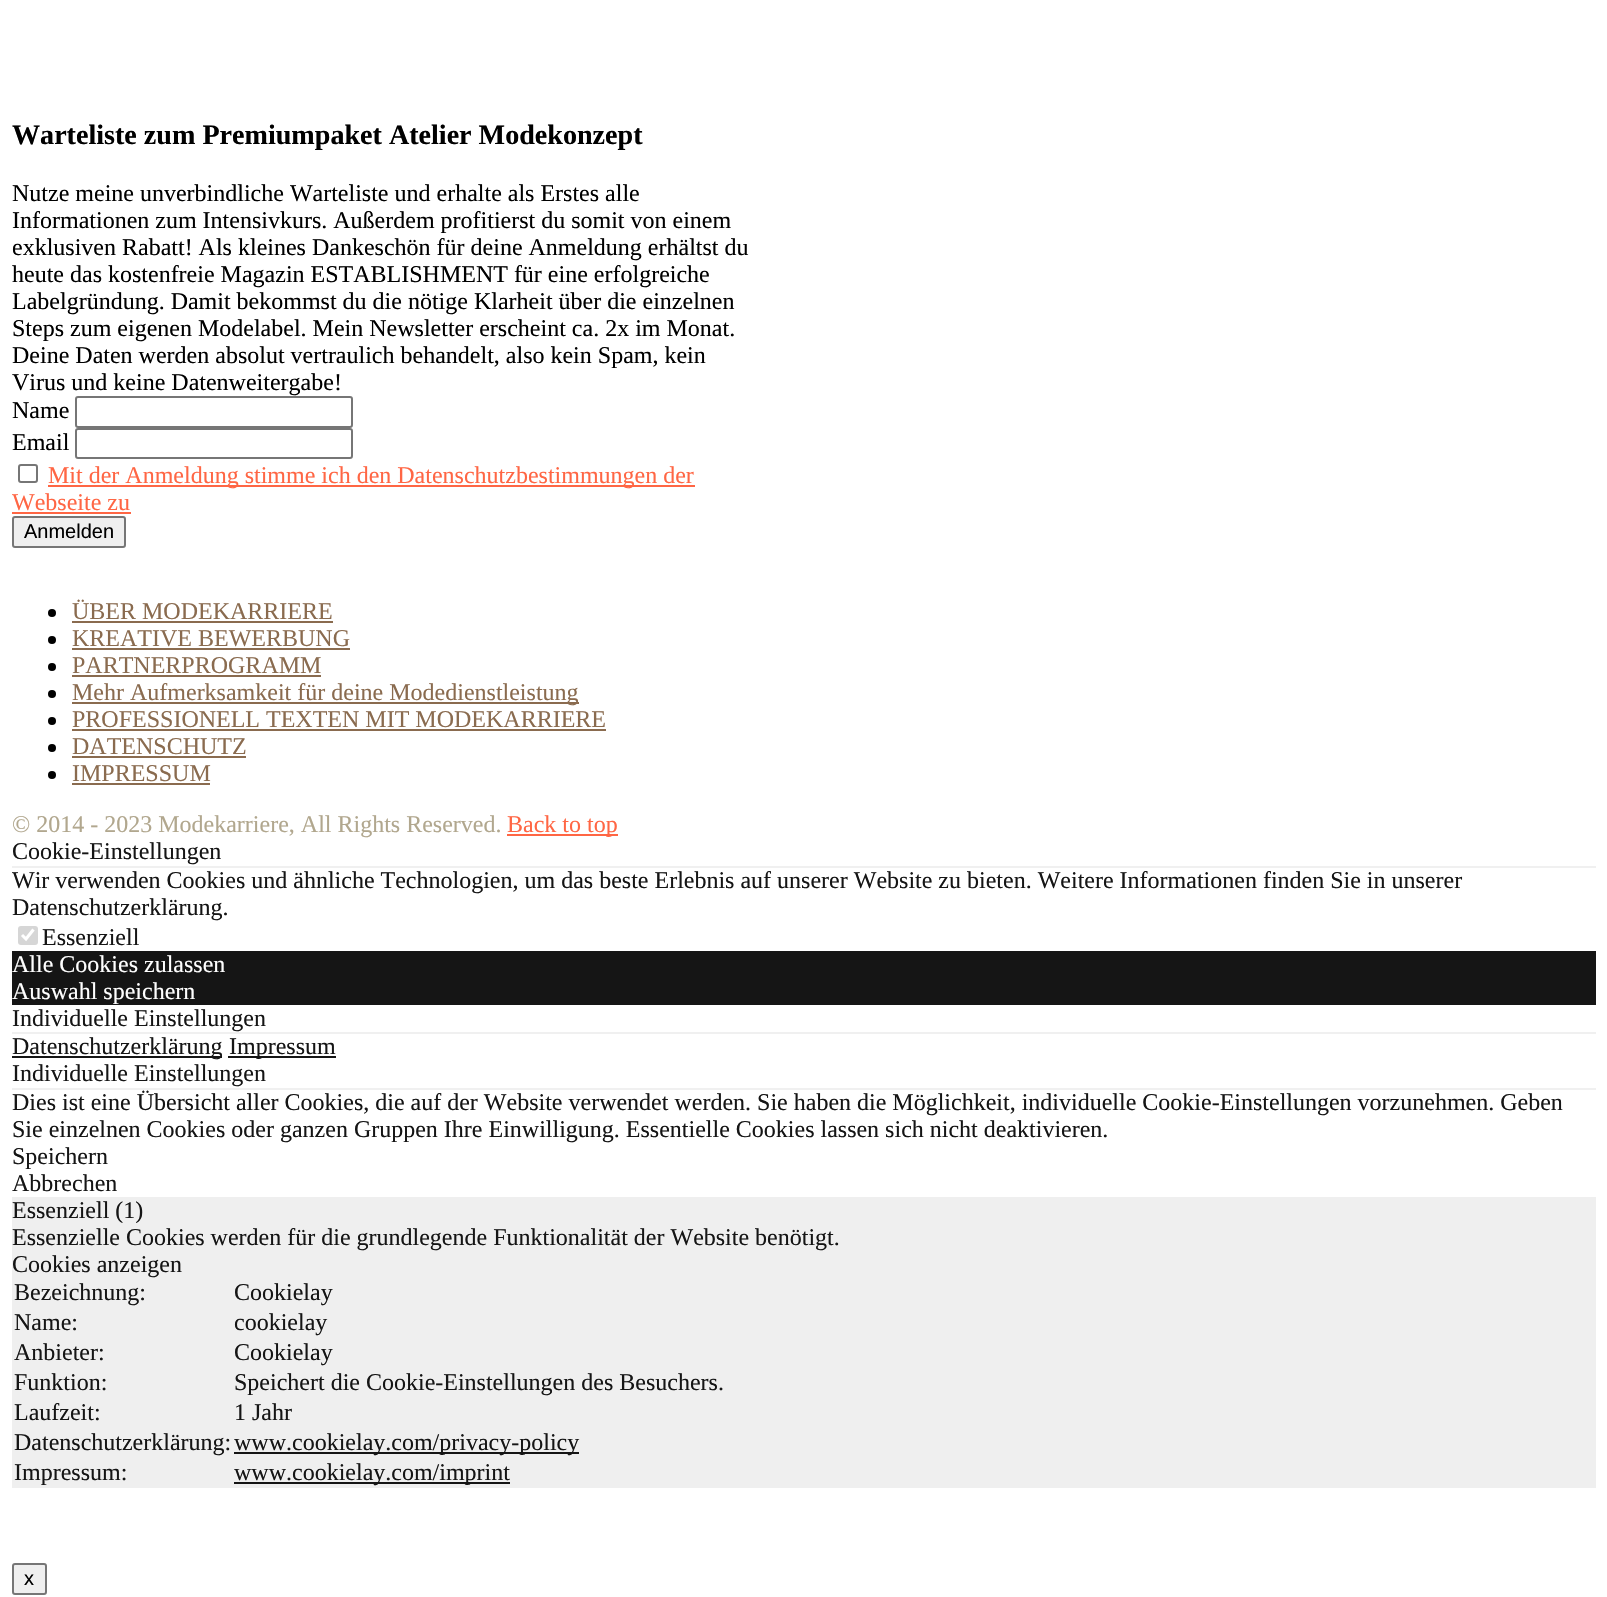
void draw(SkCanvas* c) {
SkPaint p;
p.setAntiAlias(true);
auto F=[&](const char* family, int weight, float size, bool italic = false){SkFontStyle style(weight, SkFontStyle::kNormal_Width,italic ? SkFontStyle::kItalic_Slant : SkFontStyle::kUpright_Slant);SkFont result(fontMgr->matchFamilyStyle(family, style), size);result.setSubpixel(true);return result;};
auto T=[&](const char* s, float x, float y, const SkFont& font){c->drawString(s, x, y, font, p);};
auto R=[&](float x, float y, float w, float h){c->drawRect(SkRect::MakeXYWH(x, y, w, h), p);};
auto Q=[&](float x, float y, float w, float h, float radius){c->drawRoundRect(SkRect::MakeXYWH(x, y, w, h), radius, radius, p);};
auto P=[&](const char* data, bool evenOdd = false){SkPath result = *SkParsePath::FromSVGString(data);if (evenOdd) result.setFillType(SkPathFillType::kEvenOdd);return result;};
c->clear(0xffffffff);
auto f1 = F("Liberation Serif",700,28.1);
p.setColor(0xff000000);
T("Warteliste zum Premiumpaket Atelier Modekonzept",12,144,f1);
auto f2 = F("Liberation Serif",400,24);
T("Nutze meine unverbindliche Warteliste und erhalte als Erstes alle",12,201,f2);
T("Informationen zum Intensivkurs. Außerdem profitierst du somit von einem",12,228,f2);
T("exklusiven Rabatt! Als kleines Dankeschön für deine Anmeldung erhältst du",12,255,f2);
T("heute das kostenfreie Magazin ESTABLISHMENT für eine erfolgreiche",12,282,f2);
T("Labelgründung. Damit bekommst du die nötige Klarheit über die einzelnen",12,309,f2);
T("Steps zum eigenen Modelabel. Mein Newsletter erscheint ca. 2x im Monat.",12,336,f2);
T("Deine Daten werden absolut vertraulich behandelt, also kein Spam, kein",12,363,f2);
T("Virus und keine Datenweitergabe!",12,390,f2);
T("Name",12,418,f2);
p.setStroke(true);
p.setStrokeWidth(2);
p.setColor(0xff767676);
c->drawRoundRect(SkRect::MakeXYWH(76,397,276,30),2,2,p);
p.setStroke(false);
p.setColor(0xff000000);
T("Email",12,450,f2);
p.setStroke(true);
p.setColor(0xff767676);
c->drawRoundRect(SkRect::MakeXYWH(76,429,276,29),2,2,p);
c->drawRoundRect(SkRect::MakeXYWH(19,465,18,17),2,2,p);
p.setStroke(false);
p.setColor(0xffff6644);
R(48,485,647,2);
T("Mit der Anmeldung stimme ich den Datenschutzbestimmungen der",48,483,f2);
T("Webseite zu",12,510,f2);
R(12,512,119,2);
p.setColor(0xffefefef);
c->drawRoundRect(SkRect::MakeXYWH(13,517,112,30),2,2,p);
p.setStroke(true);
p.setColor(0xff767676);
c->drawRoundRect(SkRect::MakeXYWH(13,517,112,30),2,2,p);
auto f3 = F("Liberation Sans",400,20);
p.setStroke(false);
p.setColor(0xff000000);
T("Anmelden",24,538,f3);
c->drawCircle(52,613,4,p);
p.setColor(0xff8a6b4f);
T("ÜBER MODEKARRIERE",72,619,f2);
R(72,621,261,2);
p.setColor(0xff000000);
c->drawCircle(52,640,4,p);
p.setColor(0xff8a6b4f);
T("KREATIVE BEWERBUNG",72,646,f2);
R(72,648,278,2);
p.setColor(0xff000000);
c->drawCircle(52,667,4,p);
p.setColor(0xff8a6b4f);
T("PARTNERPROGRAMM",72,673,f2);
R(72,675,249,2);
p.setColor(0xff000000);
c->drawCircle(52,694,4,p);
p.setColor(0xff8a6b4f);
R(72,702,507,2);
T("Mehr Aufmerksamkeit für deine Modedienstleistung",72,700,f2);
p.setColor(0xff000000);
c->drawCircle(52,721,4,p);
p.setColor(0xff8a6b4f);
T("PROFESSIONELL TEXTEN MIT MODEKARRIERE",72,727,f2);
R(72,729,534,2);
p.setColor(0xff000000);
c->drawCircle(52,748,4,p);
p.setColor(0xff8a6b4f);
T("DATENSCHUTZ",72,754,f2);
R(72,756,174,2);
p.setColor(0xff000000);
c->drawCircle(52,775,4,p);
p.setColor(0xff8a6b4f);
T("IMPRESSUM",72,781,f2);
R(72,783,138,2);
p.setColor(0xffb1a78e);
T("© 2014 - 2023 Modekarriere, All Rights Reserved.",12,832,f2);
p.setColor(0xffff6644);
R(507,834,111,2);
T("Back to top",507,832,f2);
p.setColor(0xfff0f0f0);
R(12,866,1584,2);
p.setColor(0xff151515);
T("Cookie-Einstellungen",12,859,f2);
T("Wir verwenden Cookies und ähnliche Technologien, um das beste Erlebnis auf unserer Website zu bieten. Weitere Informationen finden Sie in unserer",12,888,f2);
T("Datenschutzerklärung.",12,915,f2);
p.setColor(0xffd6d6d6);
Q(18,926,20,19,3);
p.setStroke(true);
p.setStrokeWidth(3.1);
p.setColor(0xffffffff);
c->drawPath(P("M22 935l4 4l7.5-9.5"),p);
p.setStroke(false);
p.setColor(0xff151515);
T("Essenziell",42,945,f2);
R(12,951,1584,54);
p.setColor(0xffffffff);
T("Alle Cookies zulassen",12,972,f2);
T("Auswahl speichern",12,999,f2);
p.setColor(0xff151515);
T("Individuelle Einstellungen",12,1026,f2);
p.setColor(0xfff0f0f0);
R(12,1032,1584,2);
p.setColor(0xff151515);
R(12,1056,210,2);
T("Datenschutzerklärung",12,1054,f2);
R(228,1056,108,2);
T("Impressum",229,1054,f2);
p.setColor(0xfff0f0f0);
R(12,1088,1584,2);
p.setColor(0xff151515);
T("Individuelle Einstellungen",12,1081,f2);
T("Dies ist eine Übersicht aller Cookies, die auf der Website verwendet werden. Sie haben die Möglichkeit, individuelle Cookie-Einstellungen vorzunehmen. Geben",12,1110,f2);
T("Sie einzelnen Cookies oder ganzen Gruppen Ihre Einwilligung. Essentielle Cookies lassen sich nicht deaktivieren.",12,1137,f2);
T("Speichern",12,1164,f2);
T("Abbrechen",12,1191,f2);
p.setColor(0xffefefef);
R(12,1197,1584,291);
p.setColor(0xff151515);
T("Essenziell (1)",12,1218,f2);
T("Essenzielle Cookies werden für die grundlegende Funktionalität der Website benötigt.",12,1245,f2);
T("Cookies anzeigen",12,1272,f2);
T("Bezeichnung:",14,1300,f2);
T("Cookielay",234,1300,f2);
T("Name:",14,1330,f2);
T("cookielay",234,1330,f2);
T("Anbieter:",14,1360,f2);
T("Cookielay",234,1360,f2);
T("Funktion:",14,1390,f2);
T("Speichert die Cookie-Einstellungen des Besuchers.",234,1390,f2);
T("Laufzeit:",14,1420,f2);
T("1 Jahr",234,1420,f2);
T("Datenschutzerklärung:",14,1450,f2);
R(234,1452,345,2);
T("www.cookielay.com/privacy-policy",234,1450,f2);
T("Impressum:",14,1480,f2);
R(234,1482,276,2);
T("www.cookielay.com/imprint",234,1480,f2);
p.setColor(0xffefefef);
c->drawRoundRect(SkRect::MakeXYWH(13,1564,33,30),2,2,p);
p.setStroke(true);
p.setStrokeWidth(2);
p.setColor(0xff767676);
c->drawRoundRect(SkRect::MakeXYWH(13,1564,33,30),2,2,p);
p.setStroke(false);
p.setColor(0xff000000);
T("x",24,1585,f3);
}
